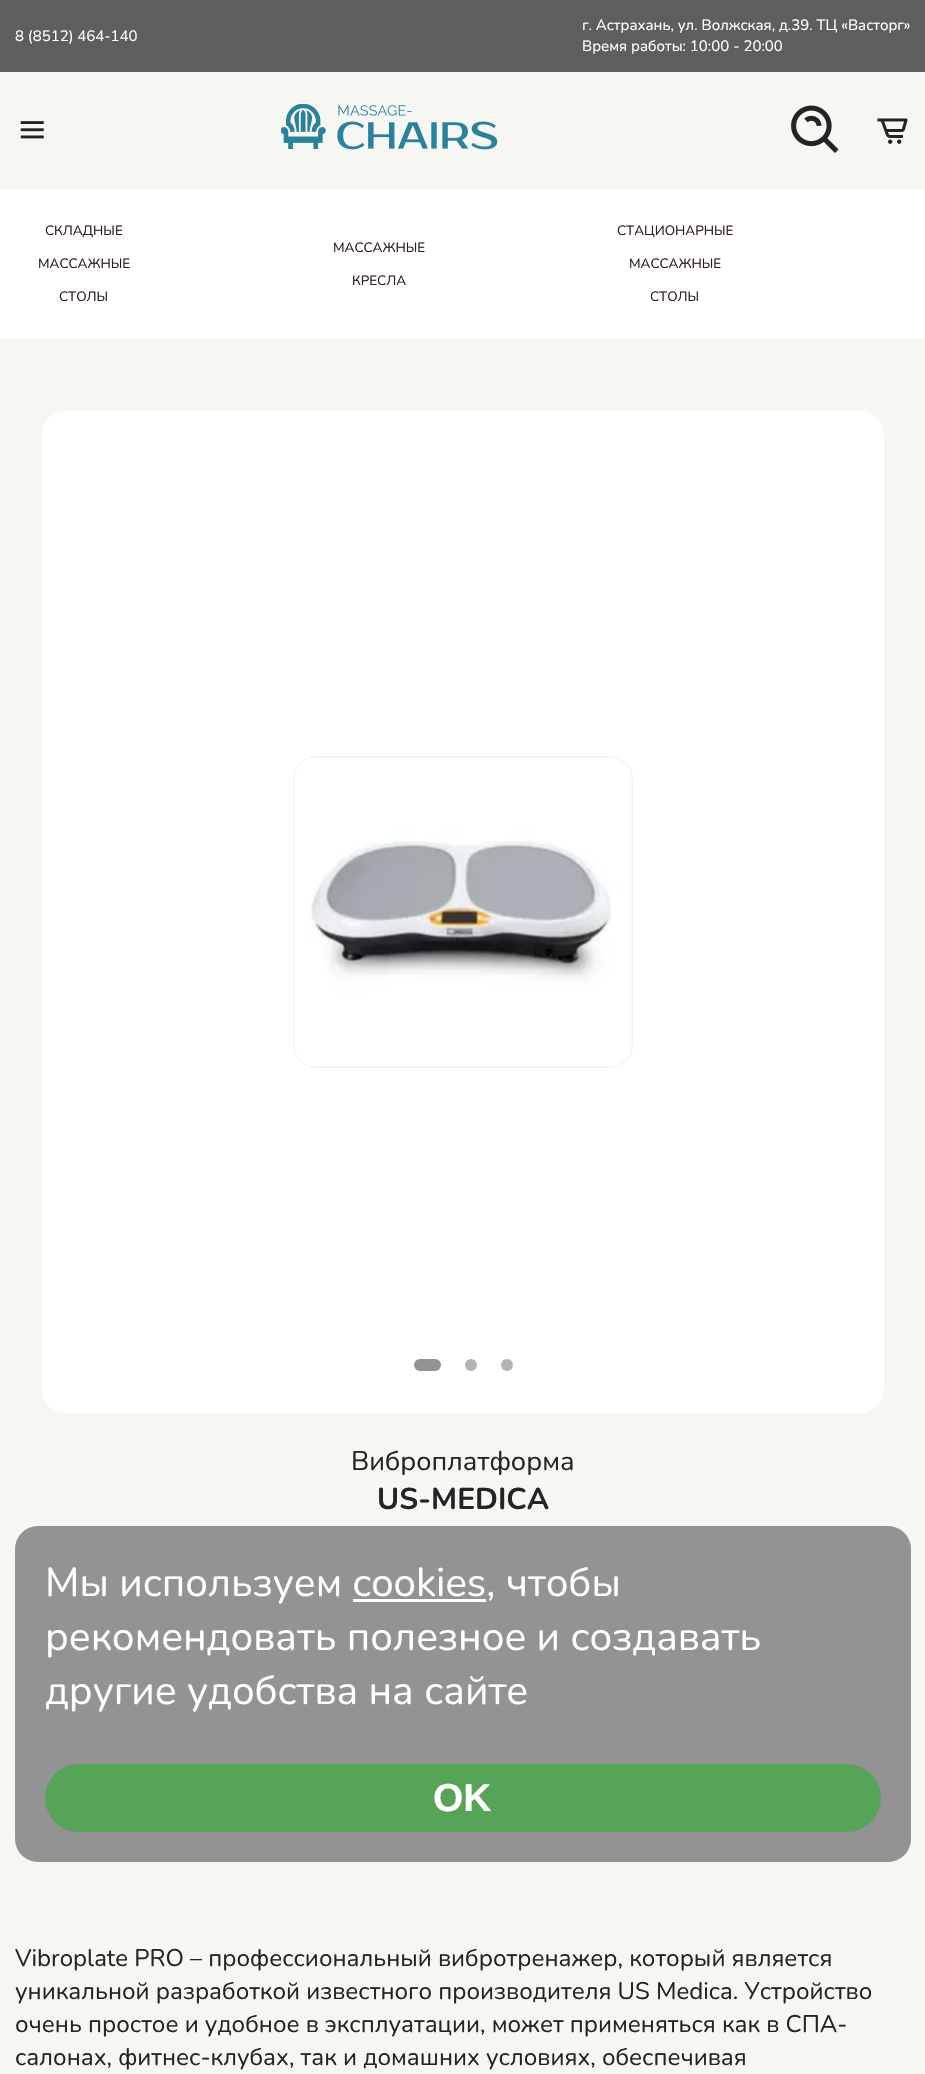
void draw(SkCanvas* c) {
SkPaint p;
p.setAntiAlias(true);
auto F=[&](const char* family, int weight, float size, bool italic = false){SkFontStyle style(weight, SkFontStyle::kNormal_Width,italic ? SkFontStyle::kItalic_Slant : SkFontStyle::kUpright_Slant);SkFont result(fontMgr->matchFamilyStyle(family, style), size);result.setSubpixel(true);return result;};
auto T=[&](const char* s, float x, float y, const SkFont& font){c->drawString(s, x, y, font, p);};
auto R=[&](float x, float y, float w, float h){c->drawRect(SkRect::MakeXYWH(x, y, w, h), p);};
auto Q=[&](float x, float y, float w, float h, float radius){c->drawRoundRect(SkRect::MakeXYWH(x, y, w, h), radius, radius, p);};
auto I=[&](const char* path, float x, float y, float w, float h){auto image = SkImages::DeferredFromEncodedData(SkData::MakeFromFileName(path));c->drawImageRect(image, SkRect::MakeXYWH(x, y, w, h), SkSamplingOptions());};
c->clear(0xfff6f6f2);
p.setColor(0xff5e5e5e);
R(0,0,925,72);
auto f1 = F("Nunito",400,15);
p.setColor(0xffffffff);
T("8 (8512) 464-140",15,41,f1);
T("г. Астрахань, ул. Волжская, д.39. ТЦ «Васторг»",582,30,f1);
T("Время работы: 10:00 - 20:00",582,51,f1);
I("1.png",20,121,24,18);
I("2.png",281,104,217,46);
I("3.png",791,105,48,48);
I("4.png",877,118,31,26);
R(0,189,925,150);
auto f2 = F("Nunito",400,13.5);
p.setColor(0xff2c1a1d);
T("СКЛАДНЫЕ",45,235,f2);
T("МАССАЖНЫЕ",38,268,f2);
T("СТОЛЫ",59,301,f2);
T("МАССАЖНЫЕ",333,252,f2);
T("КРЕСЛА",352,285,f2);
T("СТАЦИОНАРНЫЕ",617,235,f2);
T("МАССАЖНЫЕ",629,268,f2);
T("СТОЛЫ",650,301,f2);
p.setColor(0xffffffff);
Q(42,411,842,1002,23);
p.setStroke(true);
p.setStrokeWidth(2);
p.setColor(0xfff1f1f1);
c->drawRoundRect(SkRect::MakeXYWH(294,757,338,310),22,22,p);
I("5.png",294,757,338,310);
p.setStroke(false);
p.setColor(0xff939393);
Q(414,1359,27,12,6);
p.setColor(0xffb3b3b3);
c->drawCircle(471,1365,6,p);
c->drawCircle(507,1365,6,p);
auto f3 = F("Nunito",400,27);
p.setColor(0xff242424);
T("Виброплатформа",351,1470,f3);
auto f4 = F("Nunito",700,30);
T("US-MEDICA",377,1509,f4);
auto f5 = F("Nunito",400,24);
T("Vibroplate PRO – профессиональный вибротренажер, который является",15,1966,f5);
T("уникальной разработкой известного производителя US Medica. Устройство",15,1999,f5);
T("очень простое и удобное в эксплуатации, может применяться как в СПА-",15,2032,f5);
T("салонах, фитнес-клубах, так и домашних условиях, обеспечивая",15,2065,f5);
p.setColor(0xff939393);
Q(15,1526,896,336,23);
auto f6 = F("Nunito",400,40.25);
p.setColor(0xffffffff);
T("Мы используем cookies, чтобы",45,1596,f6);
R(353,1599,133,3);
T("рекомендовать полезное и создавать",45,1650,f6);
T("другие удобства на сайте",45,1704,f6);
p.setColor(0xff57a358);
Q(45,1764,836,68,34);
auto f7 = F("Liberation Sans",700,39);
p.setColor(0xffffffff);
T("OK",433,1811,f7);
}
